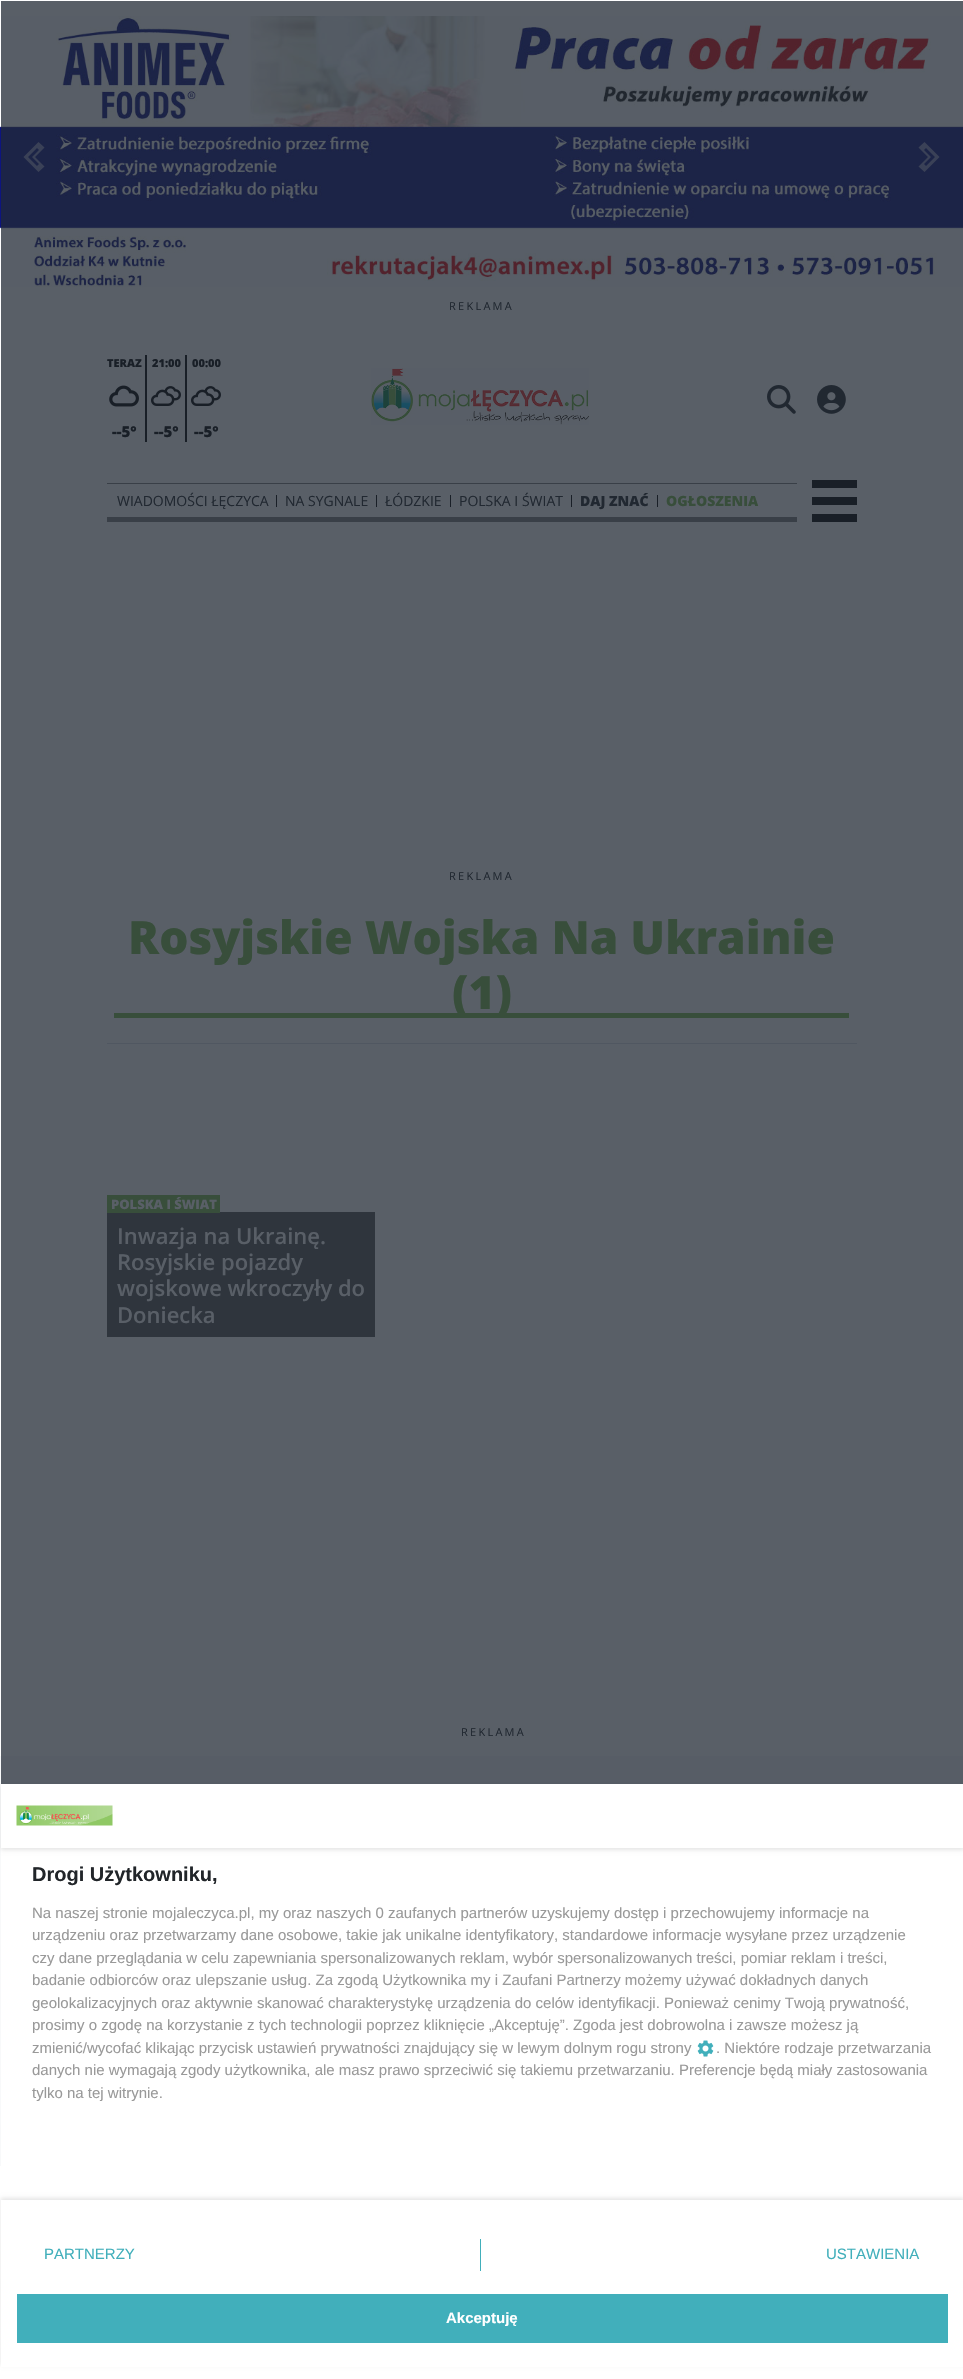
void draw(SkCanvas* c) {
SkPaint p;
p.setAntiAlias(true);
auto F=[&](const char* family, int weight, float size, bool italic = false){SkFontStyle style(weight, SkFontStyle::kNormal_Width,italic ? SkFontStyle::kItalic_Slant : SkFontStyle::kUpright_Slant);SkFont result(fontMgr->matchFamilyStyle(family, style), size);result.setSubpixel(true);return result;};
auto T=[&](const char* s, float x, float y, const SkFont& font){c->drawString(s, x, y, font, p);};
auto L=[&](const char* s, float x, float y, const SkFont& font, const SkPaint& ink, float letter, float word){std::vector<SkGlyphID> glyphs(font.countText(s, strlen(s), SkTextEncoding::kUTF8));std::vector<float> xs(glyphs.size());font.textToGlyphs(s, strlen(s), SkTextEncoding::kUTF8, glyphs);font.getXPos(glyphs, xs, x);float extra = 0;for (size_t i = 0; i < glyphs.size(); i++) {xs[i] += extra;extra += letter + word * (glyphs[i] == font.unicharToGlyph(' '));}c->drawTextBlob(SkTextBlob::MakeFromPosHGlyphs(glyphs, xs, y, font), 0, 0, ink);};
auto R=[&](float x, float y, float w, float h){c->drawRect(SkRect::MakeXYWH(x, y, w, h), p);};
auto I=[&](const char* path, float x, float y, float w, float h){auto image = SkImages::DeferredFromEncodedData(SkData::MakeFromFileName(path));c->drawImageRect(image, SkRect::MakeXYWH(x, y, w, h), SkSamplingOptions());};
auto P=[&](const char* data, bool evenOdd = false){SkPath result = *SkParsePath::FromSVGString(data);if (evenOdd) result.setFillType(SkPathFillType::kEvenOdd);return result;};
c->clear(0xffffffff);
p.setColor(0xff595f67);
R(1,1,962,1755);
I("1.png",0,16,963,271);
p.setColor(0xff3a4157);
c->drawPath(P("M38.5 142l-15 15l15 15l6-5.5l-9.5-9.5l9.5-9.5z"),p);
p.setColor(0xff1c2447);
c->drawPath(P("M39 164l-7-7l7-7l-2-2l-9 9l9 9z"),p);
p.setColor(0xff3a4157);
c->drawPath(P("M924.5 142l-6 5.5l9.5 9.5l-9.5 9.5l6 5.5l15-15z"),p);
p.setColor(0xff1c2447);
c->drawPath(P("M924 164l7-7l-7-7l2-2l9 9l-9 9z"),p);
auto f1 = F("Open Sans",400,11);
p.setColor(0xff212831);
L("REKLAMA",449,310,f1,p,2.25,0);
p.setColor(0xff191f27);
R(145,355,2,87);
auto f2 = F("Open Sans",800,11);
T("TERAZ",107,367,f2);
I("2.png",109,385,30,22);
auto f3 = F("Open Sans",800,15);
T("--5°",112,437,f3);
R(185,355,2,87);
T("21:00",152,367,f2);
I("3.png",151,386,30,20);
T("--5°",154,437,f3);
T("00:00",192,367,f2);
I("3.png",191,386,30,20);
T("--5°",194,437,f3);
I("4.png",371,368,218,57);
I("5.png",767,385,29,29);
I("6.png",817,385,29,29);
p.setColor(0xff393f47);
R(107,483,690,1);
R(107,517,690,5);
p.setColor(0xff191f27);
R(276,495,1,12);
auto f4 = F("Open Sans",400,14);
p.setColor(0xff212831);
T("WIADOMOŚCI ŁĘCZYCA",117,506,f4);
p.setColor(0xff191f27);
R(376,495,1,12);
p.setColor(0xff212831);
T("NA SYGNALE",285,506,f4);
p.setColor(0xff191f27);
R(450,495,1,12);
p.setColor(0xff212831);
T("ŁÓDZKIE",385,506,f4);
p.setColor(0xff191f27);
R(571,495,1,12);
p.setColor(0xff212831);
T("POLSKA I ŚWIAT",459,506,f4);
p.setColor(0xff191f27);
R(657,495,1,12);
auto f5 = F("Open Sans",800,14);
p.setColor(0xff212831);
T("DAJ ZNAĆ",580,506,f5);
p.setColor(0xff384e3b);
T("OGŁOSZENIA",666,506,f5);
p.setColor(0xff191f27);
R(812,480,45,8);
R(812,497,45,8);
R(812,514,45,8);
p.setColor(0xff212831);
L("REKLAMA",449,880,f1,p,2.25,0);
p.setColor(0xff505761);
R(107,1043,750,1);
auto f6 = F("Open Sans",800,46);
p.setColor(0xff384e3b);
T("Rosyjskie Wojska Na Ukrainie",128,954,f6);
R(114,1013,735,5);
T("(1)",452,1009,f6);
p.setColor(0xff2f353d);
R(107,1212,268,125);
p.setColor(0xff384e3b);
R(107,1195,113,18);
auto f7 = F("Open Sans",800,13);
p.setColor(0xff595f67);
T("POLSKA I ŚWIAT",111,1209,f7);
auto f8 = F("Open Sans",600,22);
T("Inwazja na Ukrainę.",117,1244,f8);
T("Rosyjskie pojazdy",117,1270,f8);
T("wojskowe wkroczyły do",117,1296,f8);
T("Doniecka",117,1323,f8);
p.setColor(0xff212831);
L("REKLAMA",461,1736,f1,p,2.25,0);
p.setColor(0xfff8f9fa);
R(0,1756,1,410);
p.setColor(0xff575d66);
R(1,1756,962,28);
c->save();
c->clipPath(P("M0 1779h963v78h-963zm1 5h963v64h-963z",true),true);
p.setColor(0x1a000000);
p.setMaskFilter(SkMaskFilter::MakeBlur(kNormal_SkBlurStyle, 2));
c->drawRect(SkRect::MakeXYWH(1,1786,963,64),p);
p.setMaskFilter(nullptr);
c->restore();
I("7.png",16,1805,97,21);
auto f9 = F("Liberation Sans",700,20);
p.setColor(0xff212529);
T("Drogi Użytkowniku,",32,1881,f9);
auto f10 = F("Liberation Sans",400,15);
p.setColor(0xff999999);
T("Na naszej stronie mojaleczyca.pl, my oraz naszych 0 zaufanych partnerów uzyskujemy dostęp i przechowujemy informacje na",32,1918,f10);
T("urządzeniu oraz przetwarzamy dane osobowe, takie jak unikalne identyfikatory, standardowe informacje wysyłane przez urządzenie",32,1940,f10);
T("czy dane przeglądania w celu zapewniania spersonalizowanych reklam, wybór spersonalizowanych treści, pomiar reklam i treści,",32,1963,f10);
T("badanie odbiorców oraz ulepszanie usług. Za zgodą Użytkownika my i Zaufani Partnerzy możemy używać dokładnych danych",32,1985,f10);
T("geolokalizacyjnych oraz aktywnie skanować charakterystykę urządzenia do celów identyfikacji. Ponieważ cenimy Twoją prywatność,",32,2008,f10);
T("prosimy o zgodę na korzystanie z tych technologii poprzez kliknięcie „Akceptuję”. Zgoda jest dobrowolna i zawsze możesz ją",32,2030,f10);
T("zmienić/wycofać klikając przycisk ustawień prywatności znajdujący się w lewym dolnym rogu strony",32,2053,f10);
I("8.png",697,2040,17,17);
T(". Niektóre rodzaje przetwarzania",716,2053,f10);
T("danych nie wymagają zgody użytkownika, ale masz prawo sprzeciwić się takiemu przetwarzaniu. Preferencje będą miały zastosowania",32,2075,f10);
T("tylko na tej witrynie.",32,2098,f10);
c->save();
c->clipPath(P("M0 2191h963v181h-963zm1 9h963v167h-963z",true),true);
p.setColor(0x1a000000);
p.setMaskFilter(SkMaskFilter::MakeBlur(kNormal_SkBlurStyle, 2));
c->drawRect(SkRect::MakeXYWH(1,2198,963,167),p);
p.setMaskFilter(nullptr);
c->restore();
p.setColor(0xff41afbb);
T("PARTNERZY",44,2259,f10);
R(480,2239,1,32);
T("USTAWIENIA",826,2259,f10);
R(17,2294,931,49);
auto f11 = F("Liberation Sans",700,15);
p.setColor(0xffffffff);
T("Akceptuję",446,2323,f11);
}
